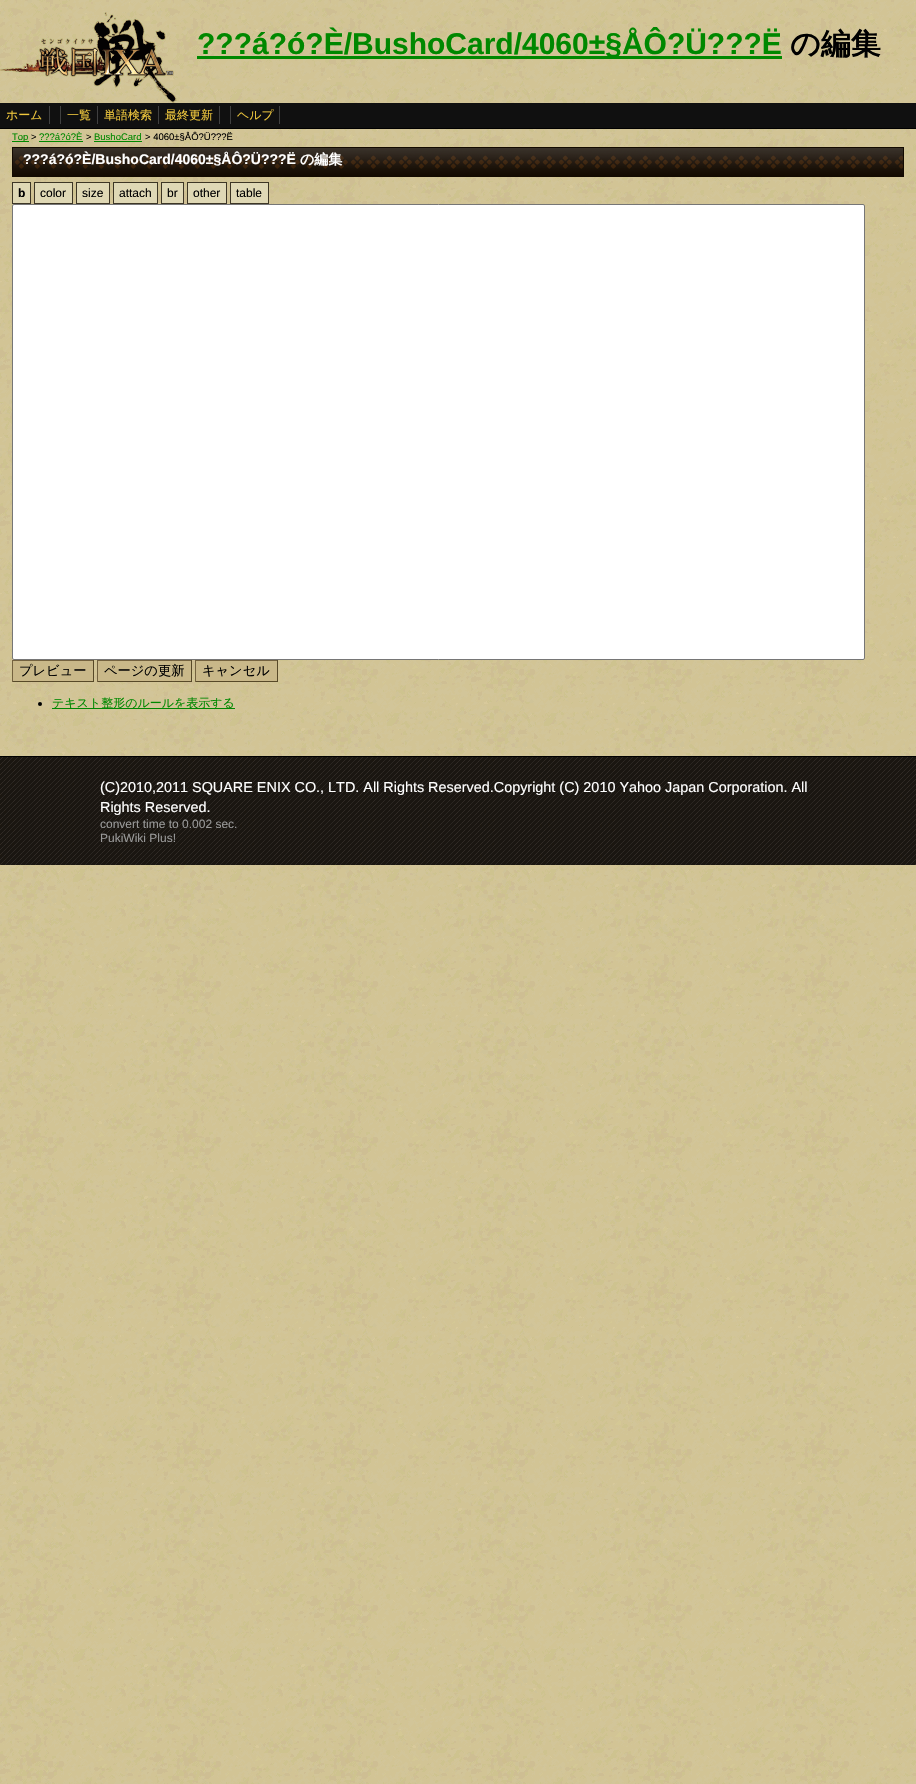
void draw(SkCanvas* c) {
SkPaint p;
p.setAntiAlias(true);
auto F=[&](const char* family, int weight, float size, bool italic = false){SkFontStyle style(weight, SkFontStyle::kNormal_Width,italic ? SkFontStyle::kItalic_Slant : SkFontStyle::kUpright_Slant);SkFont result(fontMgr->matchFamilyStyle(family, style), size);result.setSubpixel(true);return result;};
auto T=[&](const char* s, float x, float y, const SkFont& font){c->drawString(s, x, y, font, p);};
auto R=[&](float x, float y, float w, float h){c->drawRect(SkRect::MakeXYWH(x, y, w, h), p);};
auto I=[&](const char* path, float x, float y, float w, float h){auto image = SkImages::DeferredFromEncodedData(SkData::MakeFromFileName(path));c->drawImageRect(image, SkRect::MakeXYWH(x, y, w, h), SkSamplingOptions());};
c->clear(0xffffffff);
I("1.png",0,0,916,1784);
I("2.png",0,12,177,91);
p.setColor(0xff008800);
R(197,56,585,3);
auto f1 = F("Liberation Sans",700,30);
T("?\077?á?ó?È/BushoCard/4060±§ÅÔ?Ü?\077?Ë",197,54,f1);
auto f2 = F("WenQuanYi Zen Hei",700,30);
p.setColor(0xff000000);
T("の編集",790,54,f2);
p.setColor(0xff101010);
R(0,103,916,25);
auto f3 = F("WenQuanYi Zen Hei",500,12);
p.setColor(0xfff0c83d);
T("ホーム",6,119,f3);
p.setColor(0xff404040);
R(49,106,1,18);
R(60,106,1,18);
p.setColor(0xfff0c83d);
T("一覧",67,119,f3);
p.setColor(0xff404040);
R(97,106,1,18);
p.setColor(0xfff0c83d);
T("単語検索",104,119,f3);
p.setColor(0xff404040);
R(158,106,1,18);
p.setColor(0xfff0c83d);
T("最終更新",165,119,f3);
p.setColor(0xff404040);
R(219,106,1,18);
R(230,106,1,18);
p.setColor(0xfff0c83d);
T("ヘルプ",237,119,f3);
p.setColor(0xff404040);
R(279,106,1,18);
p.setColor(0xff000000);
R(0,128,916,1);
R(0,756,916,1);
p.setColor(0xff008800);
R(12,141,17,1);
auto f4 = F("Liberation Sans",400,9.5);
T("Top",12,140,f4);
p.setColor(0xff000000);
T(">",31,140,f4);
p.setColor(0xff008800);
T("?\077?á?ó?È",39,140,f4);
R(39,141,44,1);
p.setColor(0xff000000);
T(">",86,140,f4);
p.setColor(0xff008800);
T("BushoCard",94,140,f4);
R(94,141,48,1);
p.setColor(0xff000000);
T("> 4060±§ÅÔ?Ü?\077?Ë",145,140,f4);
I("3.png",13,148,890,28);
p.setStroke(true);
p.setStrokeWidth(1);
p.setColor(0xff130a00);
c->drawRect(SkRect::MakeXYWH(12.5,147.5,891,29),p);
auto f5 = F("Liberation Sans",700,14);
p.setStroke(false);
p.setColor(0xffffffff);
T("?\077?á?ó?È/BushoCard/4060±§ÅÔ?Ü?\077?Ë",23,164,f5);
auto f6 = F("WenQuanYi Zen Hei",700,14);
T("の編集",300,164,f6);
p.setColor(0xffdfd8b5);
c->drawRect(SkRect::MakeXYWH(12.5,182.5,18,21),p);
p.setStroke(true);
p.setColor(0xff3d3625);
c->drawRect(SkRect::MakeXYWH(12.5,182.5,18,21),p);
auto f7 = F("Liberation Sans",700,12);
p.setStroke(false);
p.setColor(0xff000000);
T("b",18,197,f7);
p.setColor(0xffdfd8b5);
c->drawRect(SkRect::MakeXYWH(34.5,182.5,38,21),p);
p.setStroke(true);
p.setColor(0xff3d3625);
c->drawRect(SkRect::MakeXYWH(34.5,182.5,38,21),p);
auto f8 = F("Liberation Sans",400,12);
p.setStroke(false);
p.setColor(0xff000000);
T("color",40,197,f8);
p.setColor(0xffdfd8b5);
c->drawRect(SkRect::MakeXYWH(76.5,182.5,33,21),p);
p.setStroke(true);
p.setColor(0xff3d3625);
c->drawRect(SkRect::MakeXYWH(76.5,182.5,33,21),p);
p.setStroke(false);
p.setColor(0xff000000);
T("size",82,197,f8);
p.setColor(0xffdfd8b5);
c->drawRect(SkRect::MakeXYWH(113.5,182.5,44,21),p);
p.setStroke(true);
p.setColor(0xff3d3625);
c->drawRect(SkRect::MakeXYWH(113.5,182.5,44,21),p);
p.setStroke(false);
p.setColor(0xff000000);
T("attach",119,197,f8);
p.setColor(0xffdfd8b5);
c->drawRect(SkRect::MakeXYWH(161.5,182.5,22,21),p);
p.setStroke(true);
p.setColor(0xff3d3625);
c->drawRect(SkRect::MakeXYWH(161.5,182.5,22,21),p);
p.setStroke(false);
p.setColor(0xff000000);
T("br",167,197,f8);
p.setColor(0xffdfd8b5);
c->drawRect(SkRect::MakeXYWH(187.5,182.5,39,21),p);
p.setStroke(true);
p.setColor(0xff3d3625);
c->drawRect(SkRect::MakeXYWH(187.5,182.5,39,21),p);
p.setStroke(false);
p.setColor(0xff000000);
T("other",193,197,f8);
p.setColor(0xffdfd8b5);
c->drawRect(SkRect::MakeXYWH(230.5,182.5,38,21),p);
p.setStroke(true);
p.setColor(0xff3d3625);
c->drawRect(SkRect::MakeXYWH(230.5,182.5,38,21),p);
p.setStroke(false);
p.setColor(0xff000000);
T("table",236,197,f8);
p.setColor(0xffffffff);
c->drawRoundRect(SkRect::MakeXYWH(12.5,204.5,852,455),1.5,1.5,p);
p.setStroke(true);
p.setColor(0xff767676);
c->drawRoundRect(SkRect::MakeXYWH(12.5,204.5,852,455),1.5,1.5,p);
p.setStroke(false);
p.setColor(0xffc9b889);
R(13,661,80,20);
p.setColor(0xff74623f);
R(12,660,82,1);
p.setColor(0xff574928);
R(93,660,1,22);
R(12,681,82,1);
p.setColor(0xff74623f);
R(12,660,1,22);
auto f9 = F("WenQuanYi Zen Hei",500,13.25);
p.setColor(0xff000000);
T("プレビュー",19,675,f9);
p.setColor(0xffc9b889);
R(98,661,93,20);
p.setColor(0xff74623f);
R(97,660,95,1);
p.setColor(0xff574928);
R(191,660,1,22);
R(97,681,95,1);
p.setColor(0xff74623f);
R(97,660,1,22);
p.setColor(0xff000000);
T("ページの更新",104,675,f9);
p.setColor(0xffc9b889);
R(196,661,81,20);
p.setColor(0xff74623f);
R(195,660,83,1);
p.setColor(0xff574928);
R(277,660,1,22);
R(195,681,83,1);
p.setColor(0xff74623f);
R(195,660,1,22);
p.setColor(0xff000000);
T("キャンセル",202,675,f9);
c->drawCircle(40,704,2,p);
p.setColor(0xff008800);
R(52,708,183,1);
T("テキスト整形のルールを表示する",52,707,f3);
I("4.png",0,757,916,108);
auto f10 = F("Liberation Sans",400,14.4);
p.setColor(0xffffffff);
T("(C)2010,2011 SQUARE ENIX CO., LTD. All Rights Reserved.Copyright (C) 2010 Yahoo Japan Corporation. All",100,792,f10);
T("Rights Reserved.",100,812,f10);
p.setColor(0xff999999);
T("convert time to 0.002 sec.",100,828,f8);
T("PukiWiki Plus!",100,842,f8);
}
